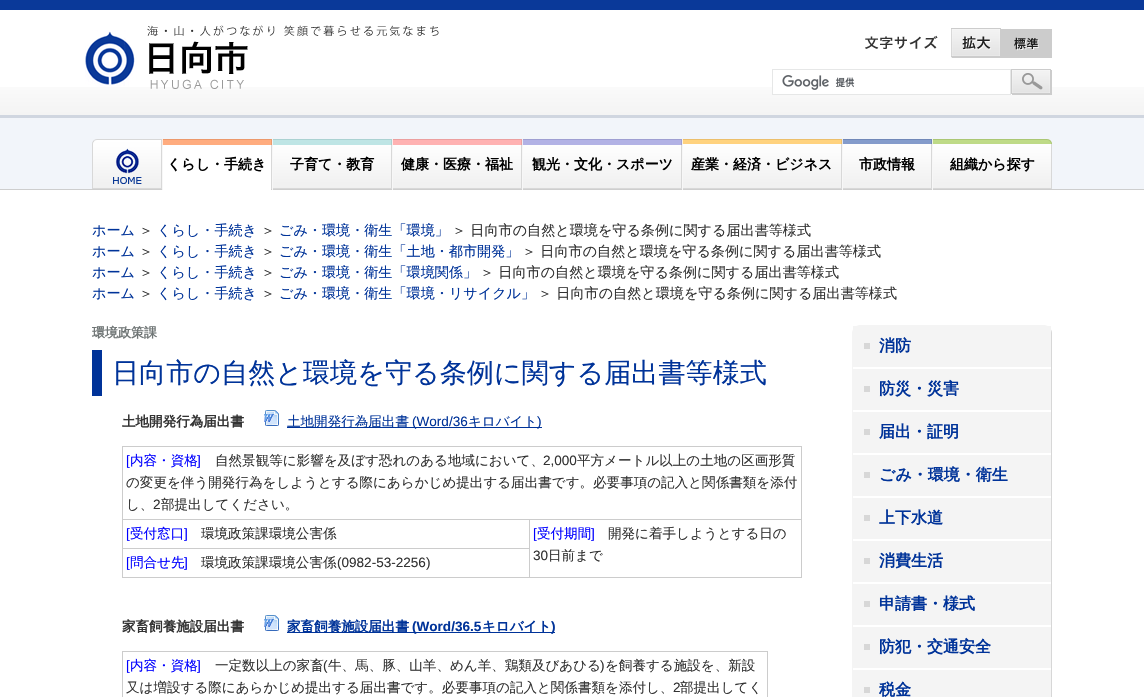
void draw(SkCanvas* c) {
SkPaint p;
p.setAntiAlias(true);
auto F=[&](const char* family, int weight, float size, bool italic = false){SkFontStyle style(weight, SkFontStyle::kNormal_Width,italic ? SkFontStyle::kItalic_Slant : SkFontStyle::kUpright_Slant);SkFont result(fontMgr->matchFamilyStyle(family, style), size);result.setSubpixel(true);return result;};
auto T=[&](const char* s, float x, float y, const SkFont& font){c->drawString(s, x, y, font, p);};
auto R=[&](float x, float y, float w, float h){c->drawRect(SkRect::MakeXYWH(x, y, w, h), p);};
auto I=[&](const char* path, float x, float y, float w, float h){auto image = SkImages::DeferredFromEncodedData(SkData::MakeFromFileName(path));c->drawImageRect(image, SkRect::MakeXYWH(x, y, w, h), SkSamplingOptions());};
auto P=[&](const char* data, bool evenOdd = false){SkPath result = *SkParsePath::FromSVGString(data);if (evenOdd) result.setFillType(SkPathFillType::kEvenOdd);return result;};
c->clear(0xffffffff);
I("1.png",0,87,1144,28);
p.setColor(0xff0a3999);
R(0,0,1144,10);
I("2.png",85,25,354,64);
I("3.png",865,35,73,14);
p.setColor(0xffcccccc);
R(1001,29,51,29);
I("4.png",951,28,50,30);
I("5.png",1014,37,25,14);
p.setColor(0xffffffff);
R(773,87,237,7);
I("6.png",782,75,73,15);
p.setStroke(true);
p.setStrokeWidth(1);
p.setColor(0xffe6e7e7);
c->drawRect(SkRect::MakeXYWH(772.5,69.5,238,25),p);
I("7.png",1011,69,41,26);
p.setStroke(false);
p.setColor(0xfff2f5fa);
R(0,118,1144,71);
p.setColor(0xffd0d6e0);
R(0,115,1144,3);
p.setColor(0xffcecece);
R(0,189,1144,1);
I("8.png",92,139,70,50);
I("9.png",162,139,110,51);
auto f1 = F("WenQuanYi Zen Hei",700,14);
p.setColor(0xff000000);
T("くらし・手続き",167,169,f1);
I("10.png",272,139,120,51);
T("子育て・教育",290,169,f1);
I("11.png",392,139,130,51);
T("健康・医療・福祉",401,169,f1);
I("12.png",522,139,160,51);
T("観光・文化・スポーツ",532,169,f1);
I("13.png",682,139,160,51);
T("産業・経済・ビジネス",691,169,f1);
I("14.png",842,139,90,51);
T("市政情報",859,169,f1);
I("15.png",932,139,120,51);
T("組織から探す",950,169,f1);
auto f2 = F("WenQuanYi Zen Hei",500,14.1);
p.setColor(0xff003399);
T("ホーム",92,235,f2);
p.setColor(0xff333333);
T("＞",139,235,f2);
p.setColor(0xff003399);
T("くらし・手続き",157,235,f2);
p.setColor(0xff333333);
T("＞",261,235,f2);
p.setColor(0xff003399);
T("ごみ・環境・衛生「環境」",279,235,f2);
p.setColor(0xff333333);
T("＞ 日向市の自然と環境を守る条例に関する届出書等様式",452,235,f2);
p.setColor(0xff003399);
T("ホーム",92,256,f2);
p.setColor(0xff333333);
T("＞",139,256,f2);
p.setColor(0xff003399);
T("くらし・手続き",157,256,f2);
p.setColor(0xff333333);
T("＞",261,256,f2);
p.setColor(0xff003399);
T("ごみ・環境・衛生「土地・都市開発」",279,256,f2);
p.setColor(0xff333333);
T("＞ 日向市の自然と環境を守る条例に関する届出書等様式",522,256,f2);
p.setColor(0xff003399);
T("ホーム",92,277,f2);
p.setColor(0xff333333);
T("＞",139,277,f2);
p.setColor(0xff003399);
T("くらし・手続き",157,277,f2);
p.setColor(0xff333333);
T("＞",261,277,f2);
p.setColor(0xff003399);
T("ごみ・環境・衛生「環境関係」",279,277,f2);
p.setColor(0xff333333);
T("＞ 日向市の自然と環境を守る条例に関する届出書等様式",480,277,f2);
p.setColor(0xff003399);
T("ホーム",92,298,f2);
p.setColor(0xff333333);
T("＞",139,298,f2);
p.setColor(0xff003399);
T("くらし・手続き",157,298,f2);
p.setColor(0xff333333);
T("＞",261,298,f2);
p.setColor(0xff003399);
T("ごみ・環境・衛生「環境・リサイクル」",279,298,f2);
p.setColor(0xff333333);
T("＞ 日向市の自然と環境を守る条例に関する届出書等様式",538,298,f2);
auto f3 = F("WenQuanYi Zen Hei",700,13);
p.setColor(0xff707676);
T("環境政策課",92,337,f3);
p.setColor(0xff003399);
R(92,350,10,46);
auto f4 = F("WenQuanYi Zen Hei",500,27.1);
T("日向市の自然と環境を守る条例に関する届出書等様式",112,382,f4);
auto f5 = F("WenQuanYi Zen Hei",700,13.55);
p.setColor(0xff333333);
T("土地開発行為届出書",122,426,f5);
I("16.png",264,410,15,16);
p.setColor(0xff003399);
R(287,427,255,1);
auto f6 = F("WenQuanYi Zen Hei",500,13.55);
T("土地開発行為届出書",287,426,f6);
auto f7 = F("Liberation Sans",400,13.55);
T("(Word/36",412,426,f7);
T("キロバイト",468,426,f6);
T(")",537,426,f7);
p.setColor(0xffcccccc);
R(122,446,680,1);
R(529,519,273,1);
R(801,519,1,59);
R(801,446,1,74);
R(122,577,408,1);
R(529,577,273,1);
R(122,548,408,1);
R(529,519,1,59);
R(122,519,408,1);
R(122,548,1,30);
R(122,519,1,30);
R(122,446,1,74);
p.setColor(0xff0000ff);
T("[",126,465,f7);
T("内容・資格",130,465,f6);
T("]",197,465,f7);
p.setColor(0xff333333);
T("自然景観等に影響を及ぼす恐れのある地域において、",215,465,f6);
T("2,000",543,465,f7);
T("平方メートル以上の土地の区画形質",577,465,f6);
T("の変更を伴う開発行為をしようとする際にあらかじめ提出する届出書です。必要事項の記入と関係書類を添付",126,487,f6);
T("し、",126,509,f6);
T("2",153,509,f7);
T("部提出してください。",161,509,f6);
p.setColor(0xff0000ff);
T("[",126,538,f7);
T("受付窓口",130,538,f6);
T("]",184,538,f7);
p.setColor(0xff333333);
T("環境政策課環境公害係",201,538,f6);
p.setColor(0xff0000ff);
T("[",533,538,f7);
T("受付期間",537,538,f6);
T("]",591,538,f7);
p.setColor(0xff333333);
T("開発に着手しようとする日の",608,538,f6);
T("30",533,560,f7);
T("日前まで",548,560,f6);
p.setColor(0xff0000ff);
T("[",126,567,f7);
T("問合せ先",130,567,f6);
T("]",184,567,f7);
p.setColor(0xff333333);
T("環境政策課環境公害係",201,567,f6);
T("(0982-53-2256)",337,567,f7);
T("家畜飼養施設届出書",122,631,f5);
I("16.png",264,615,15,16);
p.setColor(0xff003399);
R(287,632,268,1);
T("家畜飼養施設届出書",287,631,f5);
auto f8 = F("Liberation Sans",700,13.55);
T("(Word/36.5",412,631,f8);
T("キロバイト",482,631,f5);
T(")",551,631,f8);
p.setColor(0xffcccccc);
R(122,651,646,1);
R(767,651,1,46);
R(122,651,1,46);
p.setColor(0xff0000ff);
T("[",126,670,f7);
T("内容・資格",130,670,f6);
T("]",197,670,f7);
p.setColor(0xff333333);
T("一定数以上の家畜",215,670,f6);
T("(",323,670,f7);
T("牛、馬、豚、山羊、めん羊、鶏類及びあひる",328,670,f6);
T(")",600,670,f7);
T("を飼養する施設を、新設",605,670,f6);
T("又は増設する際にあらかじめ提出する届出書です。必要事項の記入と関係書類を添付し、",126,692,f6);
T("2",673,692,f7);
T("部提出してく",680,692,f6);
p.setColor(0xfff4f4f4);
c->drawPath(P("M860 325c-2 0-4 1-6 3h1c1-1 3-2 5-2h184c2 0 4 1 5 2h1c-2-2-4-3-6-3z"),p);
p.setColor(0xffd7d7d7);
c->drawPath(P("M1052 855v-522c0-2-1-4-2-5h-1c1 1 2 3 2 5v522l-1 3v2c1-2 2-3 2-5z"),p);
p.setColor(0xfff4f4f4);
c->drawPath(P("M852 333v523l2 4v-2l-1-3v-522c0-2 1-4 2-5h-1c-1 1-2 3-2 5z"),p);
R(853,326,198,41);
p.setColor(0xffd7d7d7);
R(864,343,6,6);
auto f9 = F("WenQuanYi Zen Hei",700,16);
p.setColor(0xff003399);
T("消防",879,351,f9);
p.setColor(0xfff4f4f4);
R(853,369,198,41);
p.setColor(0xffd7d7d7);
R(864,386,6,6);
p.setColor(0xff003399);
T("防災・災害",879,394,f9);
p.setColor(0xfff4f4f4);
R(853,412,198,41);
p.setColor(0xffd7d7d7);
R(864,429,6,6);
p.setColor(0xff003399);
T("届出・証明",879,437,f9);
p.setColor(0xfff4f4f4);
R(853,455,198,41);
p.setColor(0xffd7d7d7);
R(864,472,6,6);
p.setColor(0xff003399);
T("ごみ・環境・衛生",879,480,f9);
p.setColor(0xfff4f4f4);
R(853,498,198,41);
p.setColor(0xffd7d7d7);
R(864,515,6,6);
p.setColor(0xff003399);
T("上下水道",879,523,f9);
p.setColor(0xfff4f4f4);
R(853,541,198,41);
p.setColor(0xffd7d7d7);
R(864,558,6,6);
p.setColor(0xff003399);
T("消費生活",879,566,f9);
p.setColor(0xfff4f4f4);
R(853,584,198,41);
p.setColor(0xffd7d7d7);
R(864,601,6,6);
p.setColor(0xff003399);
T("申請書・様式",879,609,f9);
p.setColor(0xfff4f4f4);
R(853,627,198,41);
p.setColor(0xffd7d7d7);
R(864,644,6,6);
p.setColor(0xff003399);
T("防犯・交通安全",879,652,f9);
p.setColor(0xfff4f4f4);
R(853,670,198,27);
p.setColor(0xffd7d7d7);
R(864,687,6,6);
p.setColor(0xff003399);
T("税金",879,695,f9);
}
